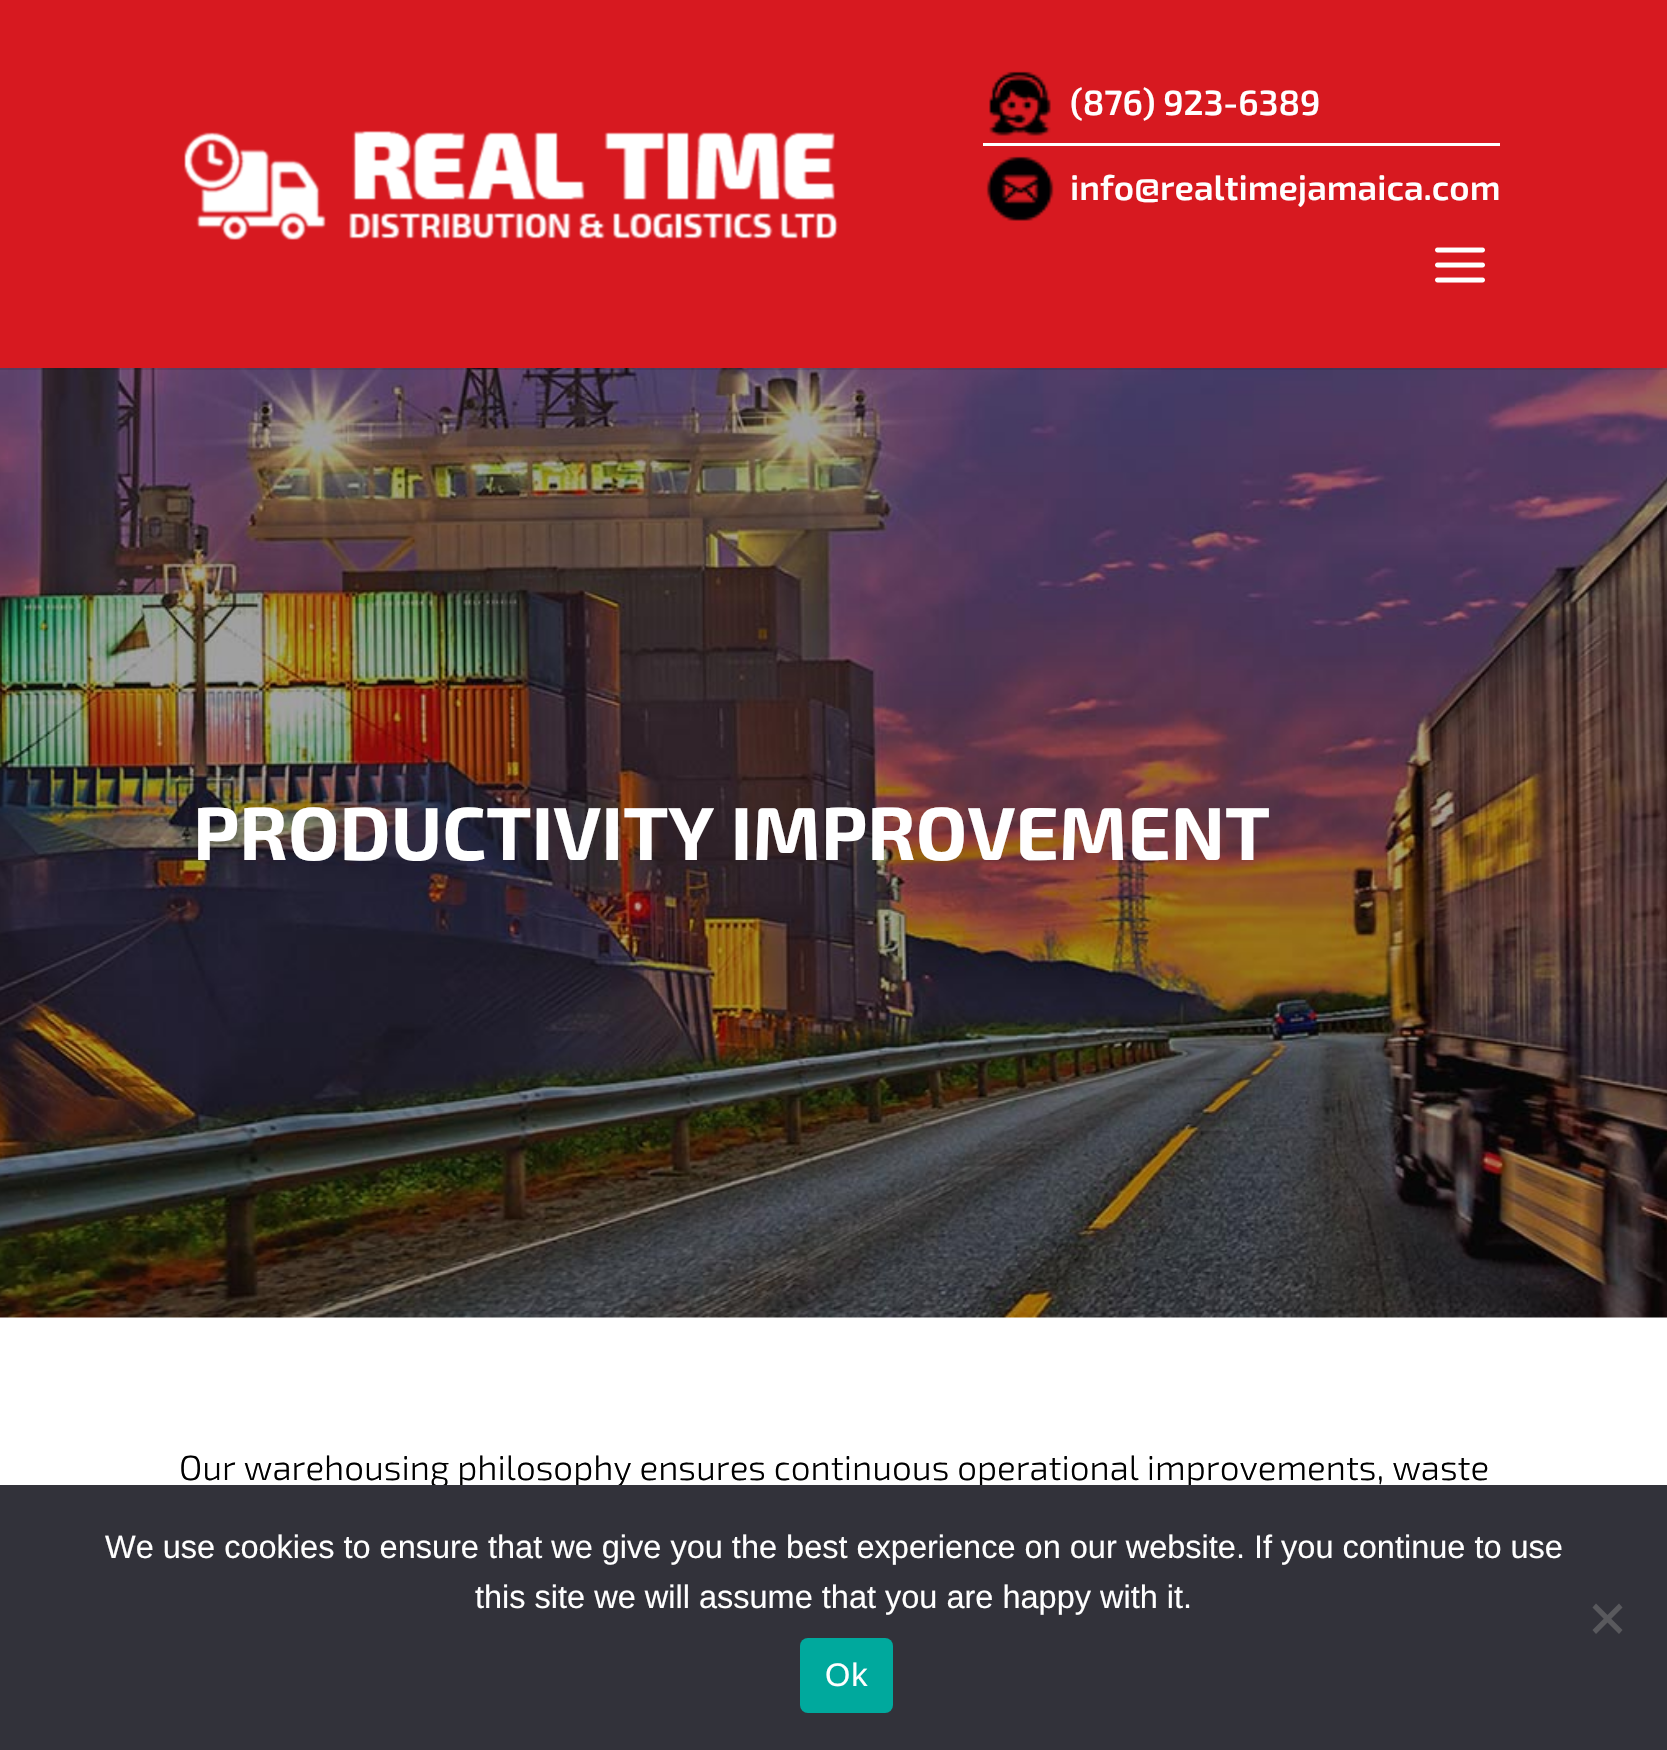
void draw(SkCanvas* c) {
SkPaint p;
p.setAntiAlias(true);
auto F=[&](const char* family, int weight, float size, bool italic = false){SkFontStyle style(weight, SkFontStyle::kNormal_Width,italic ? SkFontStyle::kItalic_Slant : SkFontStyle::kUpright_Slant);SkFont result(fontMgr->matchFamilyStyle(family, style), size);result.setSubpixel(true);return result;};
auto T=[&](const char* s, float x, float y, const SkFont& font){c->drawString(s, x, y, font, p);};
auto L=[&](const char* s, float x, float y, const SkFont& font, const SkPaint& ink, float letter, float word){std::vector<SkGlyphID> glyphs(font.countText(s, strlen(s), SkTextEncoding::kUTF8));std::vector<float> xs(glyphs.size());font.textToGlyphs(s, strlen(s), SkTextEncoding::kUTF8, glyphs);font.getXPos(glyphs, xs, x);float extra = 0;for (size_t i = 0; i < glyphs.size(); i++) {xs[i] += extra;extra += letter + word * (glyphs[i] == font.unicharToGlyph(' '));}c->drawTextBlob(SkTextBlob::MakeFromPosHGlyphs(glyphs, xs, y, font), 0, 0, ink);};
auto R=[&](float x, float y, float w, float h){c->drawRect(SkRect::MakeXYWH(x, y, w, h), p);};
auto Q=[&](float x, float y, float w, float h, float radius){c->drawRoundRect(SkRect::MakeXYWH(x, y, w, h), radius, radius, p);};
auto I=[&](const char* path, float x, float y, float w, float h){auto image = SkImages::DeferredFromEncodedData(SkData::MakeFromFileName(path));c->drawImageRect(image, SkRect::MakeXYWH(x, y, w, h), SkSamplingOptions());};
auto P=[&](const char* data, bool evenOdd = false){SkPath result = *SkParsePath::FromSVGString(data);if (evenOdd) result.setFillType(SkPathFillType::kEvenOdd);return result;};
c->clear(0xffffffff);
I("5.png",0,368,1667,950);
p.setColor(0x1a000000);
c->drawPath(P("M0 368v2h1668v-367v365z"),p);
p.setColor(0xffd71920);
R(0,0,1667,368);
I("1.png",184,130,654,110);
I("2.png",989,71,62,65);
p.setColor(0xffffffff);
R(983,143,517,3);
auto f1 = F("Exo 2",600,35);
T("(876) 923-6389",1070,115,f1);
I("3.png",986,156,68,65);
T("info@realtimejamaica.com",1070,200,f1);
I("4.png",1435,247,50,36);
auto f2 = F("Exo 2",700,75);
T("PRODUCTIVITY IMPROVEMENT",193,860,f2);
auto f3 = F("Exo 2",300,35);
p.setColor(0xff000000);
T("Our warehousing philosophy ensures continuous operational improvements, waste",179,1480,f3);
p.setColor(0xff32323a);
R(0,1485,1667,265);
auto f4 = F("Liberation Sans",400,32.5);
p.setColor(0xffffffff);
T("We use cookies to ensure that we give you the best experience on our website. If you continue to use",105,1558,f4);
T("this site we will assume that you are happy with it.",475,1608,f4);
p.setColor(0xff59595d);
c->drawPath(P("M1619 1603.5l3.5 4l-26.5 26.5l-3.5-4z"),p);
c->drawPath(P("M1592.5 1607.5l3.5-4l26.5 26.5l-3.5 4z"),p);
p.setColor(0xff00a99d);
Q(800,1638,93,75,8);
p.setColor(0xffffffff);
L("Ok",825,1686,f4,p,1,0);
}
